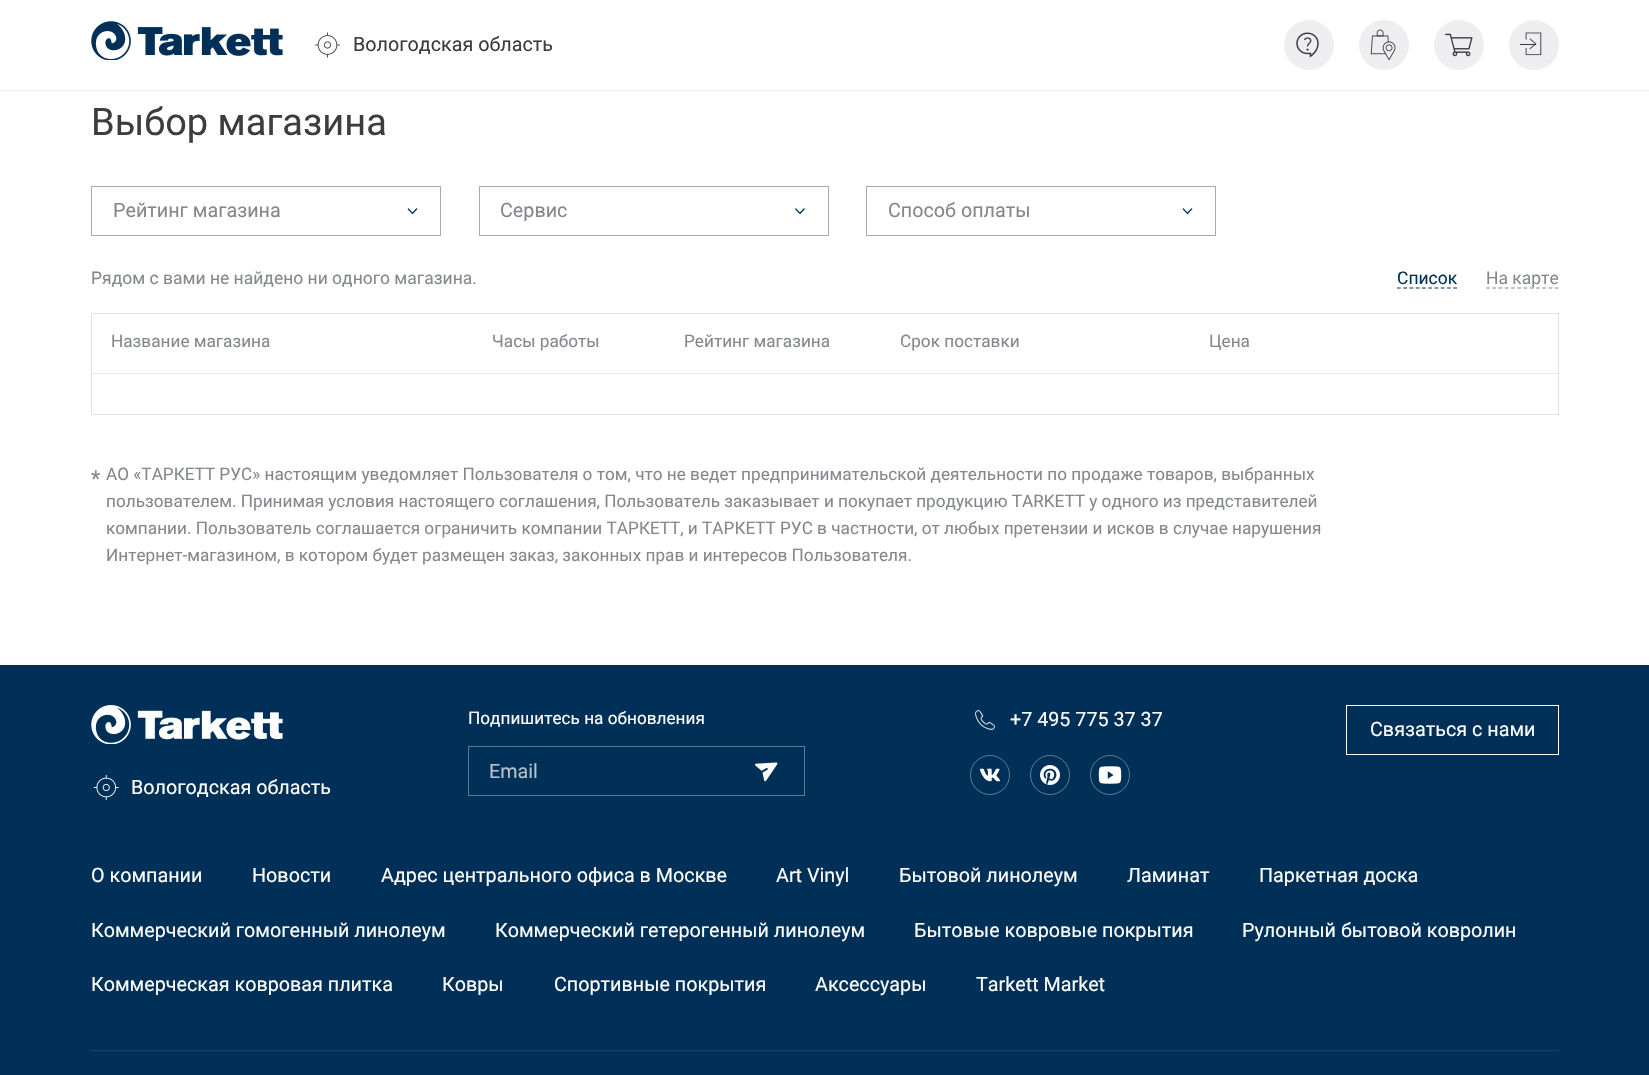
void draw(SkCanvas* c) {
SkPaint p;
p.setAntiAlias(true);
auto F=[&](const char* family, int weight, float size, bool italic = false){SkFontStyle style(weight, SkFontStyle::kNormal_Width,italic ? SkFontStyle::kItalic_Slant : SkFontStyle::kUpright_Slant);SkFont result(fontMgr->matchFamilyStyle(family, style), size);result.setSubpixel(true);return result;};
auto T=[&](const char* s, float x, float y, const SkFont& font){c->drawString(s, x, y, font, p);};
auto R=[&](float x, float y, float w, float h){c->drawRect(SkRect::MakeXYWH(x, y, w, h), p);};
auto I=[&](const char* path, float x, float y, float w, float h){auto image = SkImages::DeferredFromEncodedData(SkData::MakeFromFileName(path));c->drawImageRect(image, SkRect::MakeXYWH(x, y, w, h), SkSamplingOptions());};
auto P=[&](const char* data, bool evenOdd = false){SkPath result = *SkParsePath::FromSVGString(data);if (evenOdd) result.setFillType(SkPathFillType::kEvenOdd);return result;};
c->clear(0xffffffff);
p.setColor(0xffeeeef0);
R(0,90,1649,1);
I("1.png",91,21,192,39);
I("2.png",315,32,25,26);
auto f1 = F("Roboto",400,19.75);
p.setColor(0xff3b3d3e);
T("Вологодская область",353,51,f1);
p.setColor(0xffeeeef0);
c->drawCircle(1309,45,25,p);
I("3.png",1296,32,23,26);
c->drawCircle(1384,45,25,p);
I("4.png",1370,29,26,32);
c->drawCircle(1459,45,25,p);
I("5.png",1445,33,28,24);
c->drawCircle(1534,45,25,p);
I("6.png",1520,32,22,24);
auto f2 = F("Roboto",400,38);
p.setColor(0xff3b3d3e);
T("Выбор магазина",91,135,f2);
p.setStroke(true);
p.setStrokeWidth(1);
p.setColor(0xffa8a9ab);
c->drawRect(SkRect::MakeXYWH(91.5,186.5,349,49),p);
p.setStroke(false);
p.setColor(0xff84888d);
T("Рейтинг магазина",113,217,f1);
I("7.png",407,208,11,7);
p.setStroke(true);
p.setColor(0xffa8a9ab);
c->drawRect(SkRect::MakeXYWH(479.5,186.5,349,49),p);
p.setStroke(false);
p.setColor(0xff84888d);
T("Сервис",500,217,f1);
I("8.png",795,208,10,7);
p.setStroke(true);
p.setColor(0xffa8a9ab);
c->drawRect(SkRect::MakeXYWH(866.5,186.5,349,49),p);
p.setStroke(false);
p.setColor(0xff84888d);
T("Способ оплаты",888,217,f1);
I("7.png",1182,208,11,7);
auto f3 = F("Roboto",400,17.5);
T("Рядом с вами не найдено ни одного магазина.",91,284,f3);
p.setColor(0xff003057);
T("Список",1397,284,f3);
p.setStroke(true);
p.setStrokeWidth(1.2);
p.setPathEffect(SkDashPathEffect::Make({{3.75f,2.5f}}, 0));
c->drawPath(P("M1397 288h60"),p);
p.setPathEffect(nullptr);
p.setColor(0xff84888d);
p.setPathEffect(SkDashPathEffect::Make({{3.75f,2.5f}}, 0));
c->drawPath(P("M1486 288h73"),p);
p.setPathEffect(nullptr);
p.setStroke(false);
T("На карте",1486,284,f3);
p.setColor(0xffe0e3e4);
R(1558,313,1,102);
R(91,313,1,102);
R(93,313,1465,1);
auto f4 = F("Roboto",400,17.2);
p.setColor(0xff84888d);
T("Название магазина",111,347,f4);
T("Часы работы",492,347,f4);
T("Рейтинг магазина",684,347,f4);
T("Срок поставки",900,347,f4);
T("Цена",1209,347,f4);
p.setColor(0xffe6e8e9);
R(93,373,1465,1);
p.setColor(0xffe0e3e4);
R(93,414,1465,1);
auto f5 = F("Roboto",400,22);
p.setColor(0xff84888d);
T("*",91,486,f5);
T("АО «ТАРКЕТТ РУС» настоящим уведомляет Пользователя о том, что не ведет предпринимательской деятельности по продаже товаров, выбранных",106,480,f4);
T("пользователем. Принимая условия настоящего соглашения, Пользователь заказывает и покупает продукцию TARKETT у одного из представителей",106,507,f4);
T("компании. Пользователь соглашается ограничить компании ТАРКЕТТ, и ТАРКЕТТ РУС в частности, от любых претензии и исков в случае нарушения",106,534,f4);
T("Интернет-магазином, в котором будет размещен заказ, законных прав и интересов Пользователя.",106,561,f4);
p.setColor(0xff003057);
R(0,665,1649,410);
p.setColor(0xffffffff);
T("Подпишитесь на обновления",468,724,f4);
p.setStroke(true);
p.setStrokeWidth(1);
p.setColor(0xff607c95);
c->drawRect(SkRect::MakeXYWH(468.5,746.5,336,49),p);
p.setStroke(false);
p.setColor(0xffb3c1cd);
T("Email",489,778,f1);
I("9.png",755,762,23,20);
I("10.png",975,710,20,20);
p.setColor(0xffffffff);
T("+7 495 775 37 37",1010,726,f1);
p.setStroke(true);
p.setColor(0xff607c95);
c->drawCircle(990,775,19.5,p);
I("11.png",980,768,20,14);
c->drawCircle(1050,775,19.5,p);
I("12.png",1040,765,20,20);
c->drawCircle(1110,775,19.5,p);
I("13.png",1098,766,24,18);
p.setColor(0xffffffff);
c->drawRect(SkRect::MakeXYWH(1346.5,705.5,212,49),p);
p.setStroke(false);
T("Связаться с нами",1370,736,f1);
I("14.png",91,705,192,39);
I("15.png",93,775,26,25);
T("Вологодская область",131,794,f1);
T("О компании",91,882,f1);
T("Новости",252,882,f1);
T("Адрес центрального офиса в Москве",381,882,f1);
T("Art Vinyl",776,882,f1);
T("Бытовой линолеум",899,882,f1);
T("Ламинат",1127,882,f1);
T("Паркетная доска",1259,882,f1);
T("Коммерческий гомогенный линолеум",91,937,f1);
T("Коммерческий гетерогенный линолеум",495,937,f1);
T("Бытовые ковровые покрытия",914,937,f1);
T("Рулонный бытовой ковролин",1242,937,f1);
T("Коммерческая ковровая плитка",91,991,f1);
T("Ковры",442,991,f1);
T("Спортивные покрытия",554,991,f1);
T("Аксессуары",815,991,f1);
T("Tarkett Market",976,991,f1);
p.setColor(0xff1a4568);
R(91,1050,1468,1);
}
